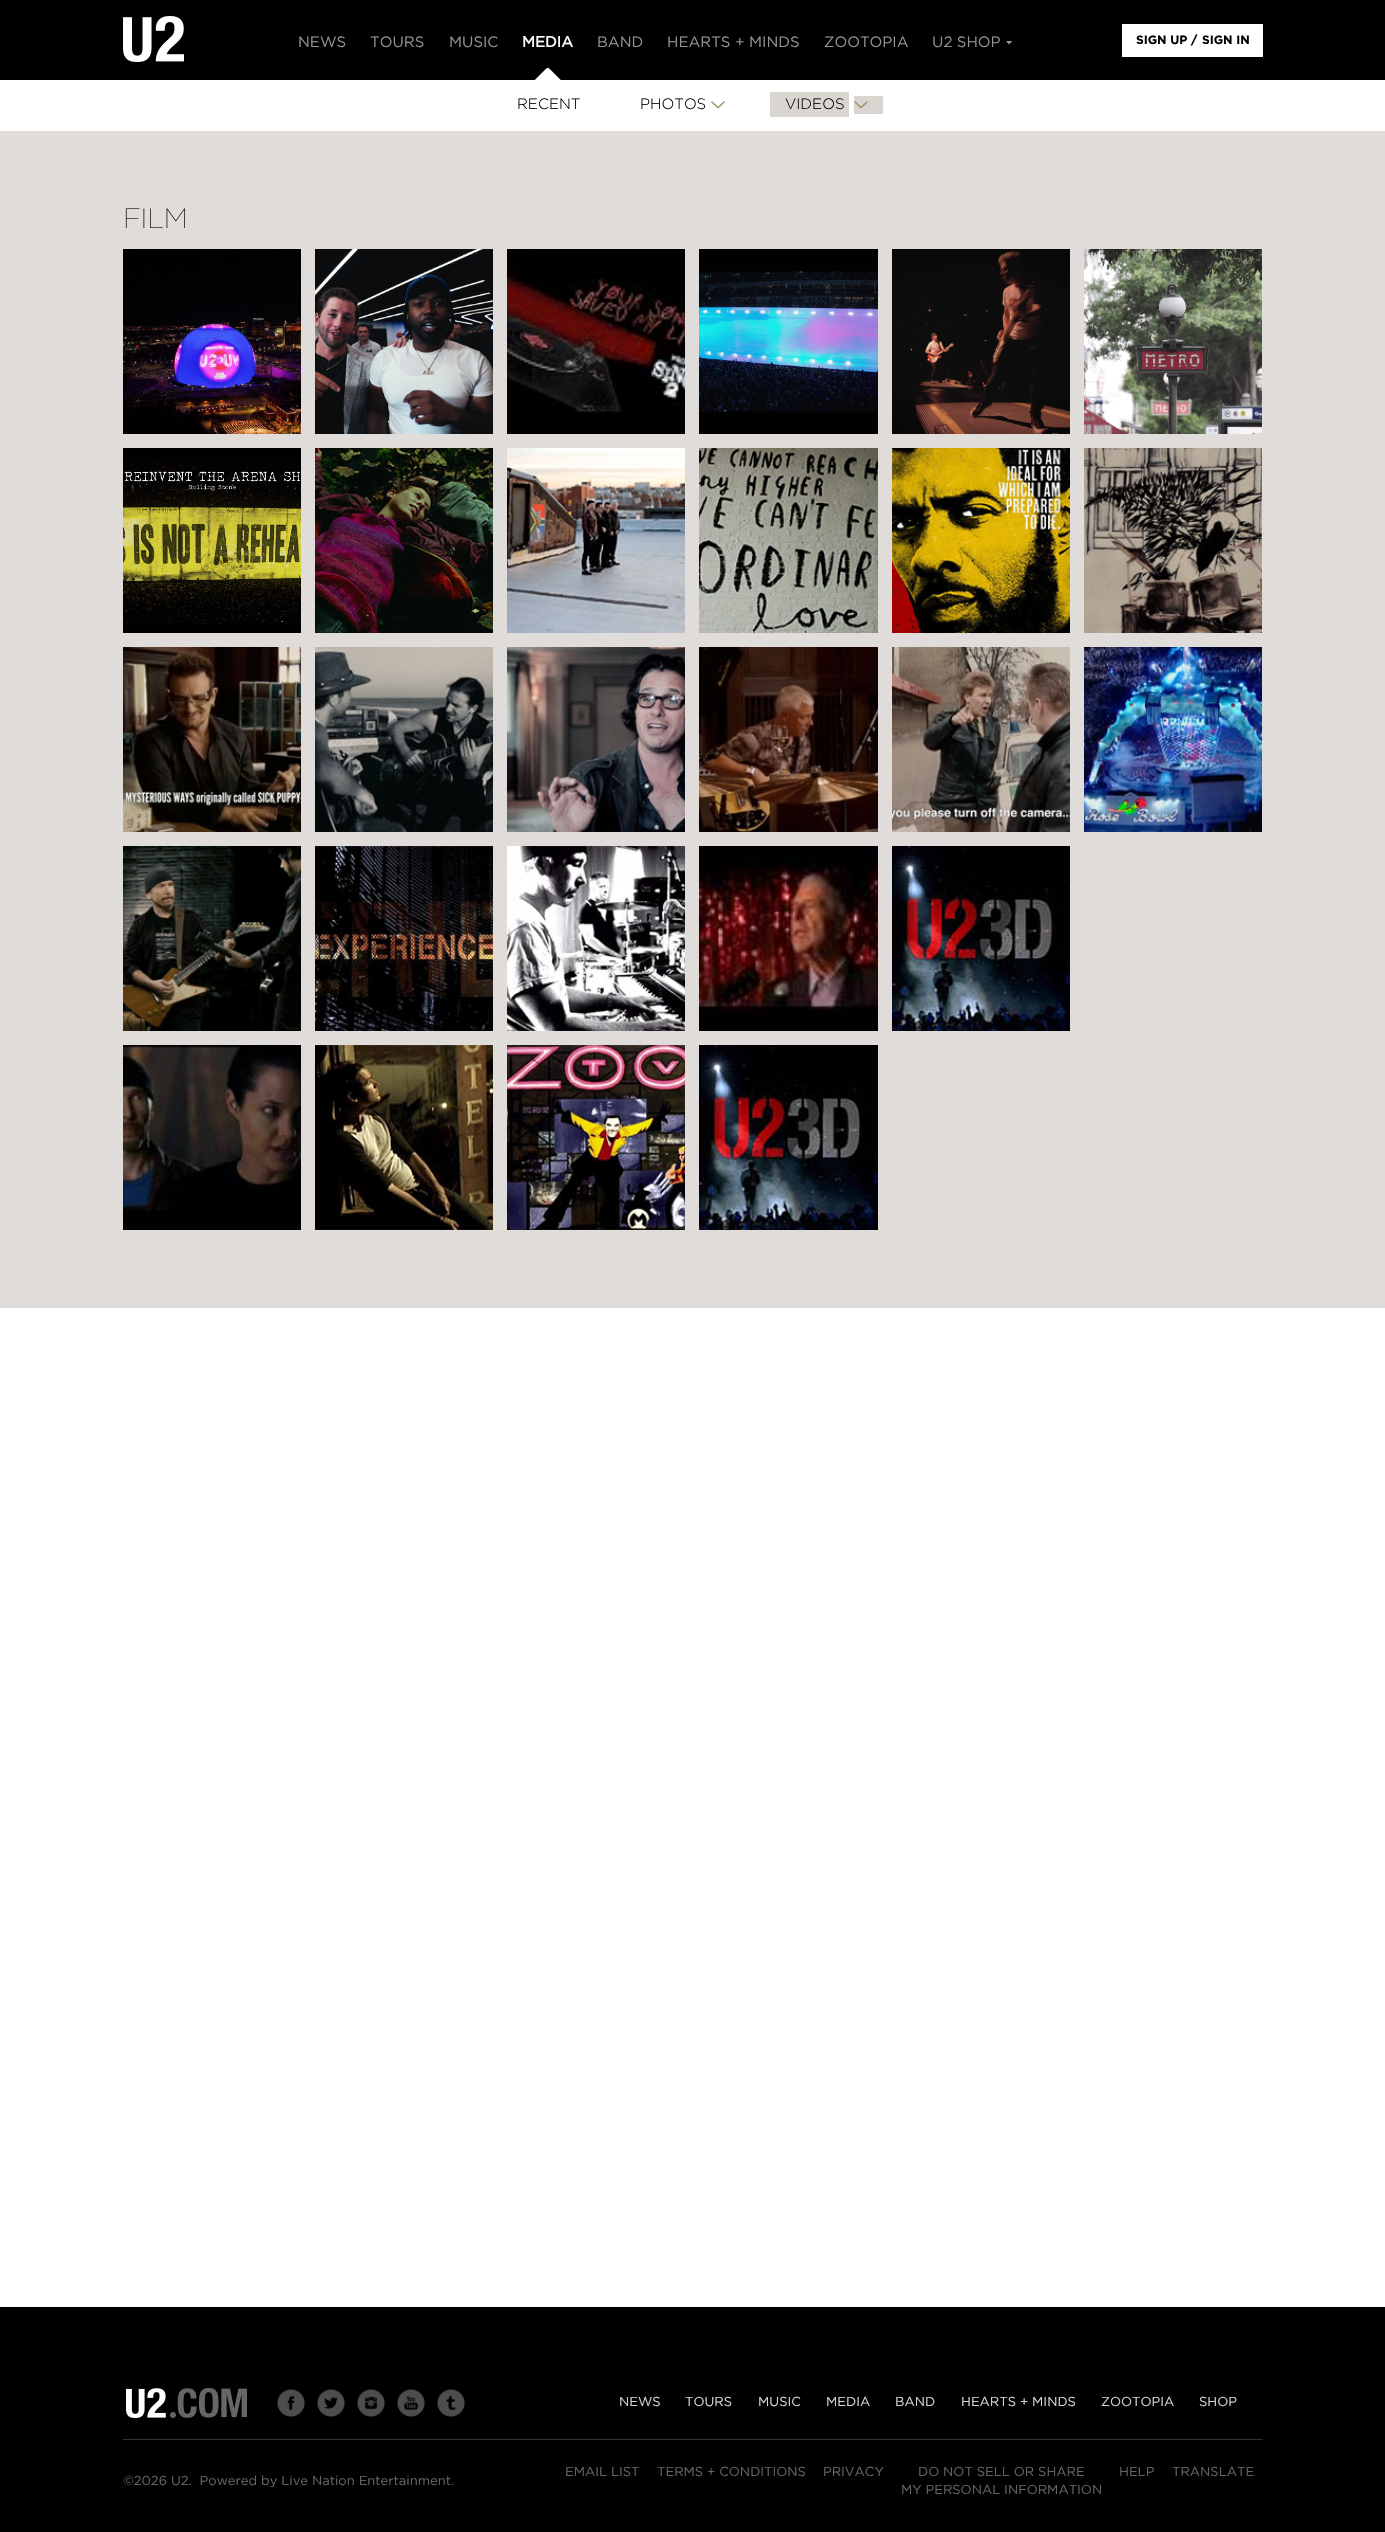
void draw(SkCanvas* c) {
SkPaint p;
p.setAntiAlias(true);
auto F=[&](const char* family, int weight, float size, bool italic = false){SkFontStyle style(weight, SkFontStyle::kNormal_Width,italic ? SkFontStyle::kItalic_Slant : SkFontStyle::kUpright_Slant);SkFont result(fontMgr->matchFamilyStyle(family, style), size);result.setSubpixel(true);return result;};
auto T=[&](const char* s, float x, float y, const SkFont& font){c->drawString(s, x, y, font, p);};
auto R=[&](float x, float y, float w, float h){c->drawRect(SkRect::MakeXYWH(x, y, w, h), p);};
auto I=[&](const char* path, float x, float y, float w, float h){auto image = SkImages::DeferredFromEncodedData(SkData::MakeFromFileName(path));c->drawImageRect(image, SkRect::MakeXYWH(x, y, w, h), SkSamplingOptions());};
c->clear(0xffffffff);
p.setColor(0xff000000);
R(0,0,1385,80);
I("1.png",123,16,61,46);
auto f1 = F("Gotham",400,15);
p.setColor(0xff959391);
T("NEWS",298,47,f1);
T("TOURS",370,47,f1);
T("MUSIC",449,47,f1);
auto f2 = F("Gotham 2",700,15);
p.setColor(0xffffffff);
T("MEDIA",522,47,f2);
I("2.png",534,68,27,12);
p.setColor(0xff959391);
T("BAND",597,47,f1);
T("HEARTS + MINDS",667,47,f1);
T("ZOOTOPIA",824,47,f1);
T("U2 SHOP",932,47,f1);
I("3.png",1006,41,6,4);
p.setColor(0xffffffff);
R(1122,24,141,33);
auto f3 = F("Gotham",700,12);
p.setColor(0xff000000);
T("SIGN UP",1136,44,f3);
T("/",1191,44,f3);
T("SIGN IN",1202,44,f3);
auto f4 = F("Gotham",300,15);
T("RECENT",517,109,f4);
T("PHOTOS",640,109,f4);
I("4.png",711,101,14,8);
p.setColor(0xffd9d5d0);
R(770,92,79,25);
R(854,96,29,18);
p.setColor(0xff000000);
T("VIDEOS",785,109,f4);
I("5.png",854,101,14,8);
p.setColor(0xffe0dcd9);
R(0,131,1385,1177);
auto f5 = F("Gotham",100,28);
p.setColor(0xff000000);
T("FILM",123,228,f5);
I("6.png",123,249,178,185);
I("7.png",315,249,178,185);
I("8.png",507,249,178,185);
I("9.png",699,249,179,185);
I("10.png",892,249,178,185);
I("11.png",1084,249,178,185);
I("12.png",123,448,178,185);
I("13.png",315,448,178,185);
I("14.png",507,448,178,185);
I("15.png",699,448,179,185);
I("16.png",892,448,178,185);
I("17.png",1084,448,178,185);
I("18.png",123,647,178,185);
I("19.png",315,647,178,185);
I("20.png",507,647,178,185);
I("21.png",699,647,179,185);
I("22.png",892,647,178,185);
I("23.png",1084,647,178,185);
I("24.png",123,846,178,185);
I("25.png",315,846,178,185);
I("26.png",507,846,178,185);
I("27.png",699,846,179,185);
I("28.png",892,846,178,185);
I("29.png",123,1045,178,185);
I("30.png",315,1045,178,185);
I("31.png",507,1045,178,185);
I("32.png",699,1045,179,185);
R(0,2307,1385,225);
I("33.png",126,2388,121,30);
I("34.png",277,2389,28,28);
I("35.png",317,2389,28,28);
I("36.png",357,2389,28,28);
I("37.png",397,2389,28,28);
I("38.png",437,2389,28,28);
auto f6 = F("Gotham",400,13);
p.setColor(0xffd9d5d0);
T("NEWS",619,2406,f6);
T("TOURS",685,2406,f6);
T("MUSIC",758,2406,f6);
T("MEDIA",826,2406,f6);
T("BAND",895,2406,f6);
T("HEARTS + MINDS",961,2406,f6);
T("ZOOTOPIA",1101,2406,f6);
T("SHOP",1199,2406,f6);
p.setColor(0xff333333);
R(123,2439,1140,1);
p.setColor(0xff676563);
T("©2026 U2.  Powered by Live Nation Entertainment.",123,2485,f6);
T("EMAIL LIST",565,2476,f6);
T("TERMS + CONDITIONS",657,2476,f6);
T("PRIVACY",823,2476,f6);
T("DO NOT SELL OR SHARE",918,2476,f6);
T("MY PERSONAL INFORMATION",901,2494,f6);
T("HELP",1119,2476,f6);
T("TRANSLATE",1172,2476,f6);
}
